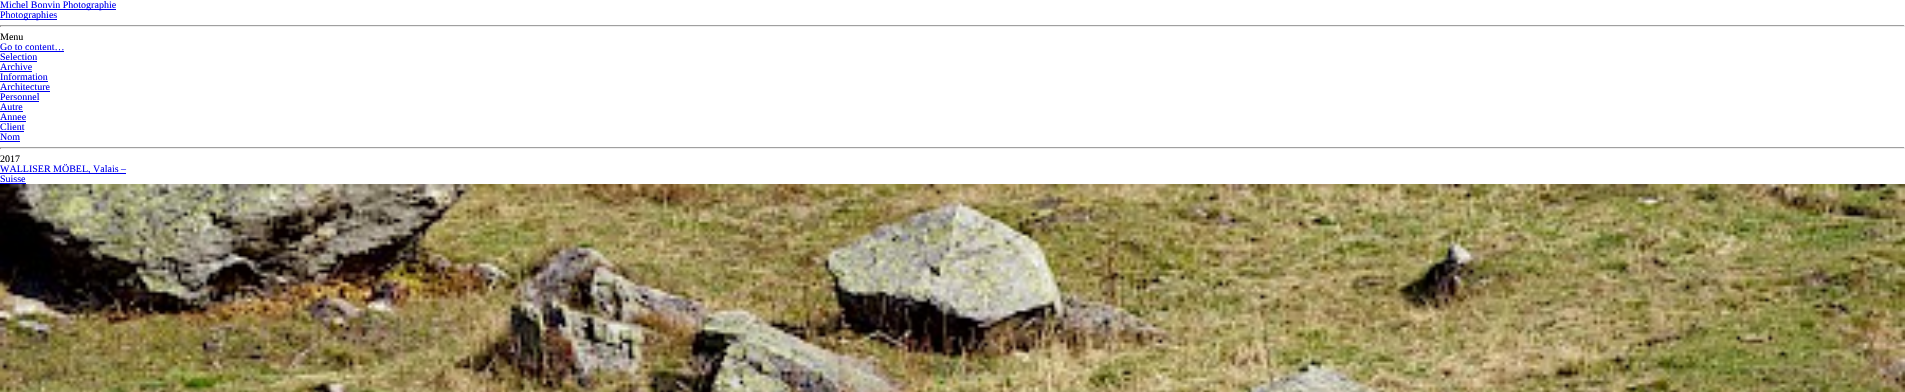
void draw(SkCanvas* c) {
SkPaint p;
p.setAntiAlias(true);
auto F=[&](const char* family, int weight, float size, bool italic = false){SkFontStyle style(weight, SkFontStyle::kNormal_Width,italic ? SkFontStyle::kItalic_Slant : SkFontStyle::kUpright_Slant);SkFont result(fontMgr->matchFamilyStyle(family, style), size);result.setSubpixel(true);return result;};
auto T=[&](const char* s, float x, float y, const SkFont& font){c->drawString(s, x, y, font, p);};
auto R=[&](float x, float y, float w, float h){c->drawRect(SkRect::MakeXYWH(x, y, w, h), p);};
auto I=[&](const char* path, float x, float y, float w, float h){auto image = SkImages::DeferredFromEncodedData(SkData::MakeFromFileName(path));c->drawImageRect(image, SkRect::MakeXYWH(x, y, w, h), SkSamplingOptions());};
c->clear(0xffffffff);
p.setColor(0xff0000ee);
R(0,9,116,1);
auto f1 = F("Liberation Serif",400,10);
T("Michel Bonvin Photographie",0,8,f1);
R(0,19,57,1);
T("Photographies",0,18,f1);
p.setColor(0xff9f9f9f);
R(0,25,1905,1);
p.setColor(0xffeeeeee);
R(1904,25,1,2);
R(0,26,1905,1);
p.setColor(0xff9f9f9f);
R(0,25,1,2);
p.setColor(0xff000000);
T("Menu",0,40,f1);
p.setColor(0xff0000ee);
T("Go to content…",0,50,f1);
R(0,51,64,1);
T("Selection",0,60,f1);
R(0,61,37,1);
T("Archive",0,70,f1);
R(0,71,32,1);
T("Information",0,80,f1);
R(0,81,48,1);
T("Architecture",0,90,f1);
R(0,91,50,1);
T("Personnel",0,100,f1);
R(0,101,39,1);
T("Autre",0,110,f1);
R(0,111,23,1);
T("Annee",0,120,f1);
R(0,121,26,1);
T("Client",0,130,f1);
R(0,131,24,1);
T("Nom",0,140,f1);
R(0,141,20,1);
p.setColor(0xff9f9f9f);
R(0,147,1905,1);
p.setColor(0xffeeeeee);
R(1904,147,1,2);
R(0,148,1905,1);
p.setColor(0xff9f9f9f);
R(0,147,1,2);
p.setColor(0xff000000);
T("2017",0,162,f1);
p.setColor(0xff0000ee);
R(0,173,126,1);
T("WALLISER MÖBEL, Valais –",0,172,f1);
T("Suisse",0,182,f1);
R(0,183,26,1);
I("1.png",0,184,1905,208);
}
